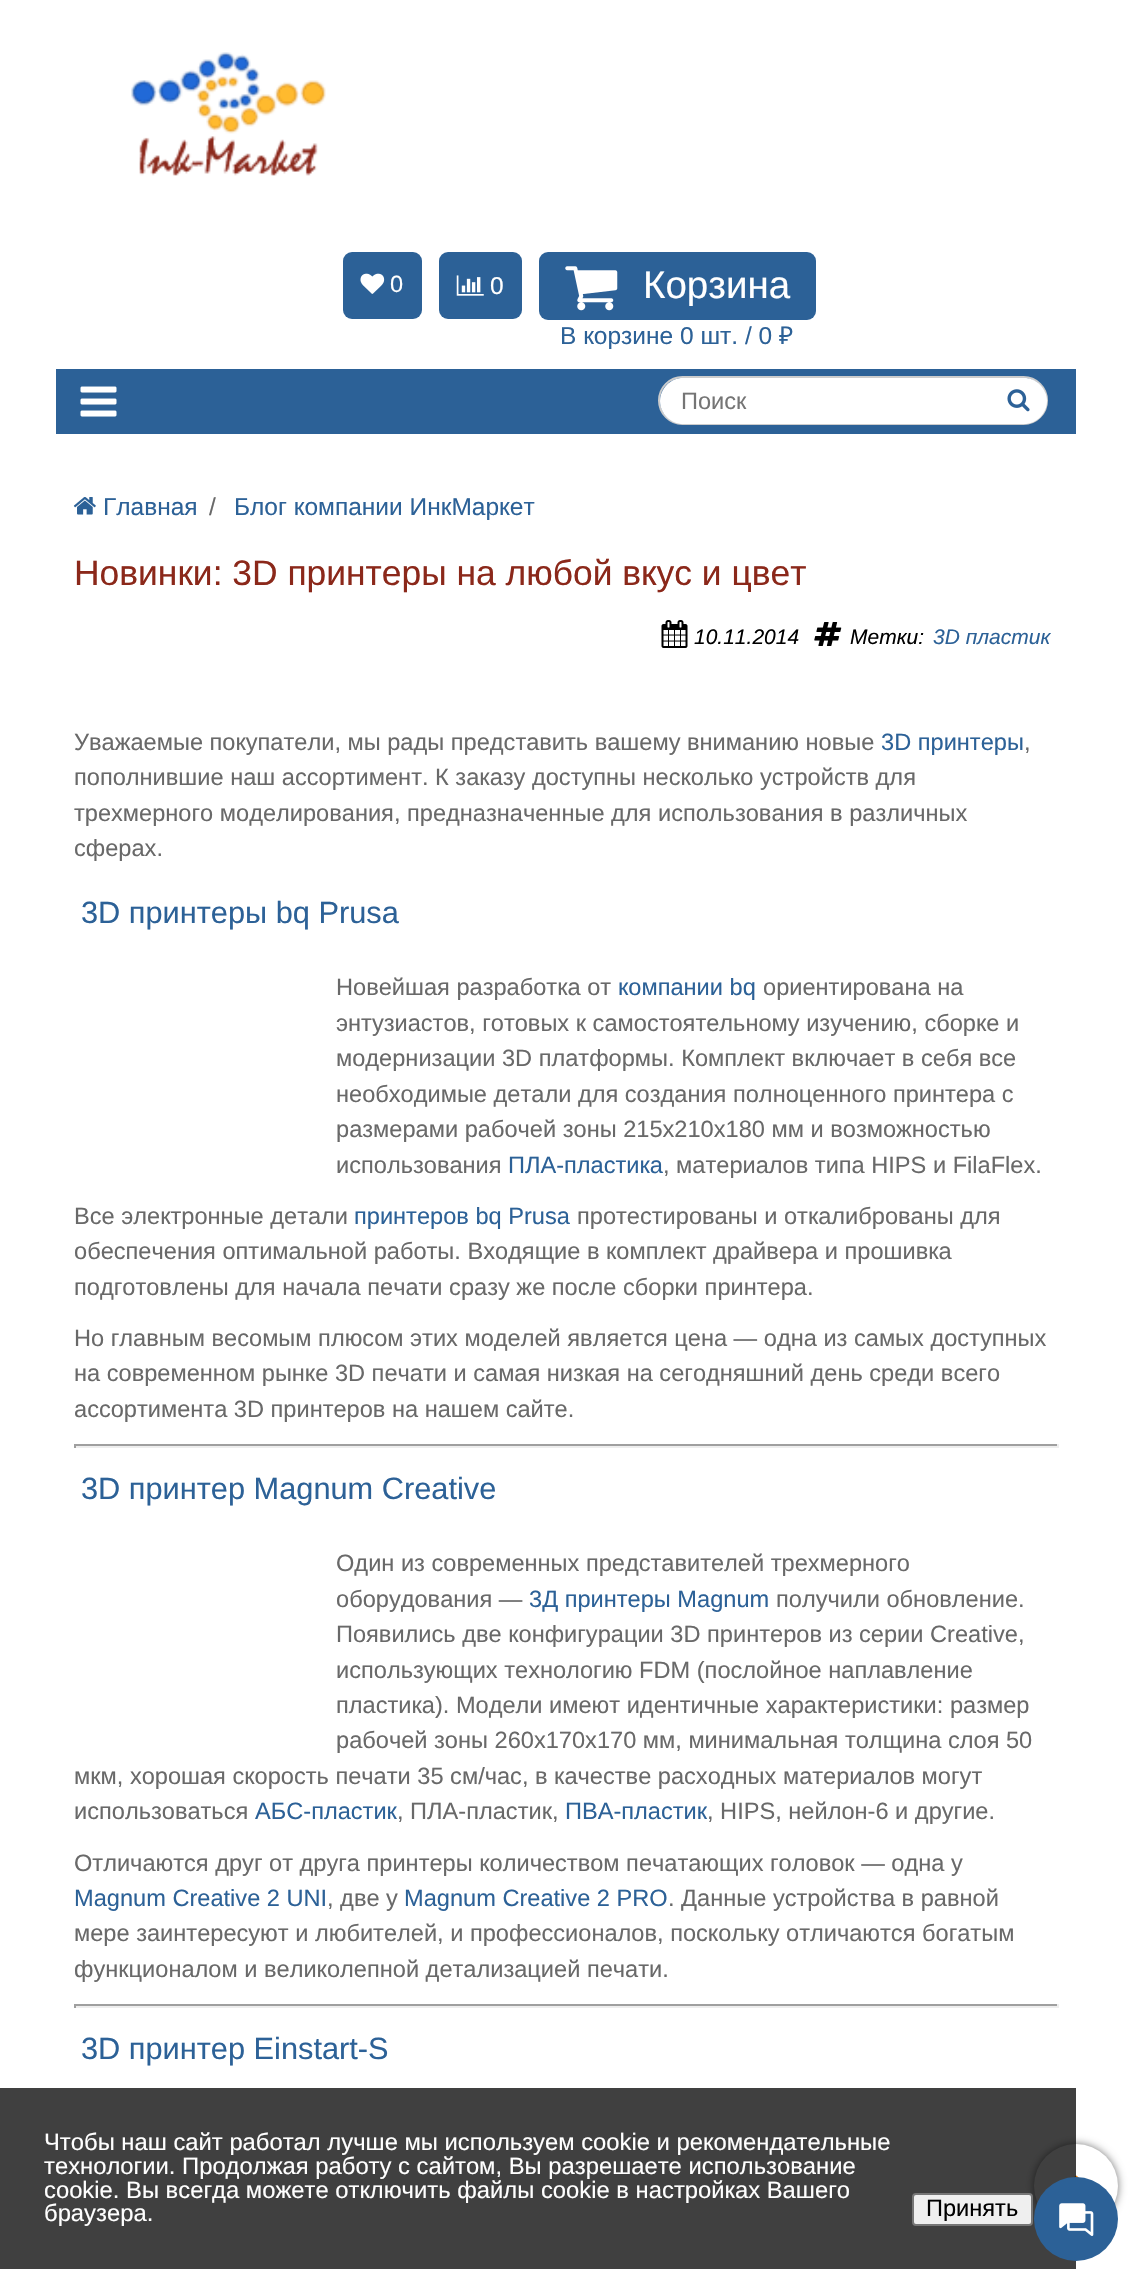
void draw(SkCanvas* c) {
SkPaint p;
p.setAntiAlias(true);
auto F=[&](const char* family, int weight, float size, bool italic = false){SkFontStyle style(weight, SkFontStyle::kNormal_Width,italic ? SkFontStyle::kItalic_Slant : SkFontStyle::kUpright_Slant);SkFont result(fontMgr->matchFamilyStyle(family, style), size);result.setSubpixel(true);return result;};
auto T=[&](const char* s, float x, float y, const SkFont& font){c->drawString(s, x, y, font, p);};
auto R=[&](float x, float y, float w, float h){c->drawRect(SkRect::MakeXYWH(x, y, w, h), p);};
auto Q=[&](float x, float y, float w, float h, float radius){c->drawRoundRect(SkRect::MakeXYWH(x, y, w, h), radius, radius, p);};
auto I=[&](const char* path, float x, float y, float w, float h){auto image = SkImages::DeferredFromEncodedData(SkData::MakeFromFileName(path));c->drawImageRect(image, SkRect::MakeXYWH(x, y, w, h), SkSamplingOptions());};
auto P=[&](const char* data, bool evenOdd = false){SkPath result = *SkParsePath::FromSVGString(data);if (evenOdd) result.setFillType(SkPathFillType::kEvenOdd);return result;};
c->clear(0xffffffff);
I("1.png",131,52,195,124);
p.setColor(0xff2c6197);
Q(343,252,79,67,9);
I("2.png",360,273,25,21);
auto f1 = F("Liberation Sans",400,23.6);
p.setColor(0xffffffff);
T("0",390,292,f1);
p.setColor(0xff2c6197);
Q(439,252,83,67,9);
I("3.png",456,275,28,21);
auto f2 = F("Liberation Sans",400,24.5);
p.setColor(0xffffffff);
T("0",490,294,f2);
p.setColor(0xff2c6197);
Q(539,252,277,68,9);
I("4.png",565,266,53,45);
auto f3 = F("Liberation Sans",400,38.5);
p.setColor(0xffffffff);
T("Корзина",643,298,f3);
p.setColor(0xff2c6197);
T("В корзине 0 шт. / 0",560,344,f2);
auto f4 = F("Noto Sans",400,24.5);
T("₽",779,344,f4);
R(56,369,1020,65);
I("5.png",80,386,37,31);
p.setStroke(true);
p.setStrokeWidth(2);
p.setColor(0xffcccccc);
c->drawRoundRect(SkRect::MakeXYWH(659,377,388,47),23.5,23.5,p);
p.setStroke(false);
p.setColor(0xffffffff);
c->drawPath(P("M683 378h308v46h-308c-12.5 0-23-10.5-23-23c0-12.5 10.5-23 23-23z"),p);
p.setColor(0xff757575);
T("Поиск",681,409,f1);
p.setColor(0xffffffff);
c->drawPath(P("M991 378h33c12.5 0 23 10.5 23 23c0 12.5-10.5 23-23 23h-33z"),p);
I("6.png",1007,389,23,23);
I("7.png",73,497,23,18);
p.setColor(0xff2c6197);
T("Главная",103,515,f2);
p.setColor(0xff696969);
T("/",209,515,f2);
p.setColor(0xff2c6197);
T("Блог компании ИнкМаркет",234,515,f2);
auto f5 = F("Liberation Sans",400,35.4);
p.setColor(0xff8b281a);
T("Новинки: 3D принтеры на любой вкус и цвет",74,585,f5);
I("8.png",661,620,27,28);
auto f6 = F("Liberation Sans",400,21,true);
p.setColor(0xff000000);
T("10.11.2014",694,644,f6);
I("9.png",814,622,28,24);
T("Метки:",850,644,f6);
p.setColor(0xff2c6197);
T("3D пластик",933,644,f6);
p.setColor(0xff696969);
T("Уважаемые покупатели, мы рады представить вашему вниманию новые",74,750,f1);
p.setColor(0xff2c6197);
T("3D принтеры",881,750,f1);
p.setColor(0xff696969);
T(",",1024,750,f1);
T("пополнившие наш ассортимент. К заказу доступны несколько устройств для",74,785,f1);
T("трехмерного моделирования, предназначенные для использования в различных",74,821,f1);
T("сферах.",74,856,f1);
auto f7 = F("Liberation Sans",400,30.75);
p.setColor(0xff2c6197);
T("3D принтеры bq Prusa",81,923,f7);
p.setColor(0xff696969);
T("Новейшая разработка от",336,995,f1);
p.setColor(0xff2c6197);
T("компании bq",618,995,f1);
p.setColor(0xff696969);
T("ориентирована на",763,995,f1);
T("энтузиастов, готовых к самостоятельному изучению, сборке и",336,1031,f1);
T("модернизации 3D платформы. Комплект включает в себя все",336,1066,f1);
T("необходимые детали для создания полноценного принтера с",336,1102,f1);
T("размерами рабочей зоны 215x210x180 мм и возможностью",336,1137,f1);
T("использования",336,1173,f1);
p.setColor(0xff2c6197);
T("ПЛА-пластика",508,1173,f1);
p.setColor(0xff696969);
T(", материалов типа HIPS и FilaFlex.",663,1173,f1);
T("Все электронные детали",74,1224,f1);
p.setColor(0xff2c6197);
T("принтеров bq Prusa",354,1224,f1);
p.setColor(0xff696969);
T("протестированы и откалиброваны для",577,1224,f1);
T("обеспечения оптимальной работы. Входящие в комплект драйвера и прошивка",74,1259,f1);
T("подготовлены для начала печати сразу же после сборки принтера.",74,1295,f1);
T("Но главным весомым плюсом этих моделей является цена — одна из самых доступных",74,1346,f1);
T("на современном рынке 3D печати и самая низкая на сегодняшний день среди всего",74,1381,f1);
T("ассортимента 3D принтеров на нашем сайте.",74,1417,f1);
p.setColor(0xff9f9f9f);
R(74,1444,985,2);
p.setColor(0xffeeeeee);
R(1057,1444,2,4);
R(74,1446,985,2);
p.setColor(0xff9f9f9f);
R(74,1444,2,4);
p.setColor(0xff2c6197);
T("3D принтер Magnum Creative",81,1499,f7);
p.setColor(0xff696969);
T("Один из современных представителей трехмерного",336,1571,f1);
T("оборудования —",336,1607,f1);
p.setColor(0xff2c6197);
T("3Д принтеры Magnum",529,1607,f1);
p.setColor(0xff696969);
T("получили обновление.",776,1607,f1);
T("Появились две конфигурации 3D принтеров из серии Creative,",336,1642,f1);
T("использующих технологию FDM (послойное наплавление",336,1678,f1);
T("пластика). Модели имеют идентичные характеристики: размер",336,1713,f1);
T("рабочей зоны 260x170x170 мм, минимальная толщина слоя 50",336,1748,f1);
T("мкм, хорошая скорость печати 35 см/час, в качестве расходных материалов могут",74,1784,f1);
T("использоваться",74,1819,f1);
p.setColor(0xff2c6197);
T("АБС-пластик",255,1819,f1);
p.setColor(0xff696969);
T(", ПЛА-пластик,",397,1819,f1);
p.setColor(0xff2c6197);
T("ПВА-пластик",565,1819,f1);
p.setColor(0xff696969);
T(", HIPS, нейлон-6 и другие.",707,1819,f1);
T("Отличаются друг от друга принтеры количеством печатающих головок — одна у",74,1871,f1);
p.setColor(0xff2c6197);
T("Magnum Creative 2 UNI",74,1906,f1);
p.setColor(0xff696969);
T(", две у",327,1906,f1);
p.setColor(0xff2c6197);
T("Magnum Creative 2 PRO",404,1906,f1);
p.setColor(0xff696969);
T(". Данные устройства в равной",668,1906,f1);
T("мере заинтересуют и любителей, и профессионалов, поскольку отличаются богатым",74,1941,f1);
T("функционалом и великолепной детализацией печати.",74,1977,f1);
p.setColor(0xff9f9f9f);
R(74,2004,985,2);
p.setColor(0xffeeeeee);
R(1057,2004,2,4);
R(74,2006,985,2);
p.setColor(0xff9f9f9f);
R(74,2004,2,4);
p.setColor(0xff2c6197);
T("3D принтер Einstart-S",81,2059,f7);
p.setColor(0xff777777);
p.setMaskFilter(SkMaskFilter::MakeBlur(kNormal_SkBlurStyle, 4.5));
c->drawRoundRect(SkRect::MakeXYWH(1034,2144,84,84),42,42,p);
p.setMaskFilter(nullptr);
p.setColor(0xffffffff);
c->drawCircle(1076,2186,42,p);
I("10.png",1073,2175,6,3);
p.setColor(0xbf000000);
R(0,2088,1076,181);
auto f8 = F("Liberation Sans",400,23.8);
p.setColor(0xffffffff);
T("Чтобы наш сайт работал лучше мы используем cookie и рекомендательные",44,2150,f8);
T("технологии. Продолжая работу с сайтом, Вы разрешаете использование",44,2174,f8);
T("cookie. Вы всегда можете отключить файлы cookie в настройках Вашего",44,2198,f8);
T("браузера.",44,2221,f8);
p.setColor(0xffefefef);
c->drawRoundRect(SkRect::MakeXYWH(913,2194,119,31),3,3,p);
p.setStroke(true);
p.setColor(0xff767676);
c->drawRoundRect(SkRect::MakeXYWH(913,2194,119,31),3,3,p);
p.setStroke(false);
p.setColor(0xff000000);
T("Принять",926,2216,f1);
p.setColor(0xff2c6197);
c->drawCircle(1076,2219,42,p);
I("11.png",1059,2203,35,33);
}
